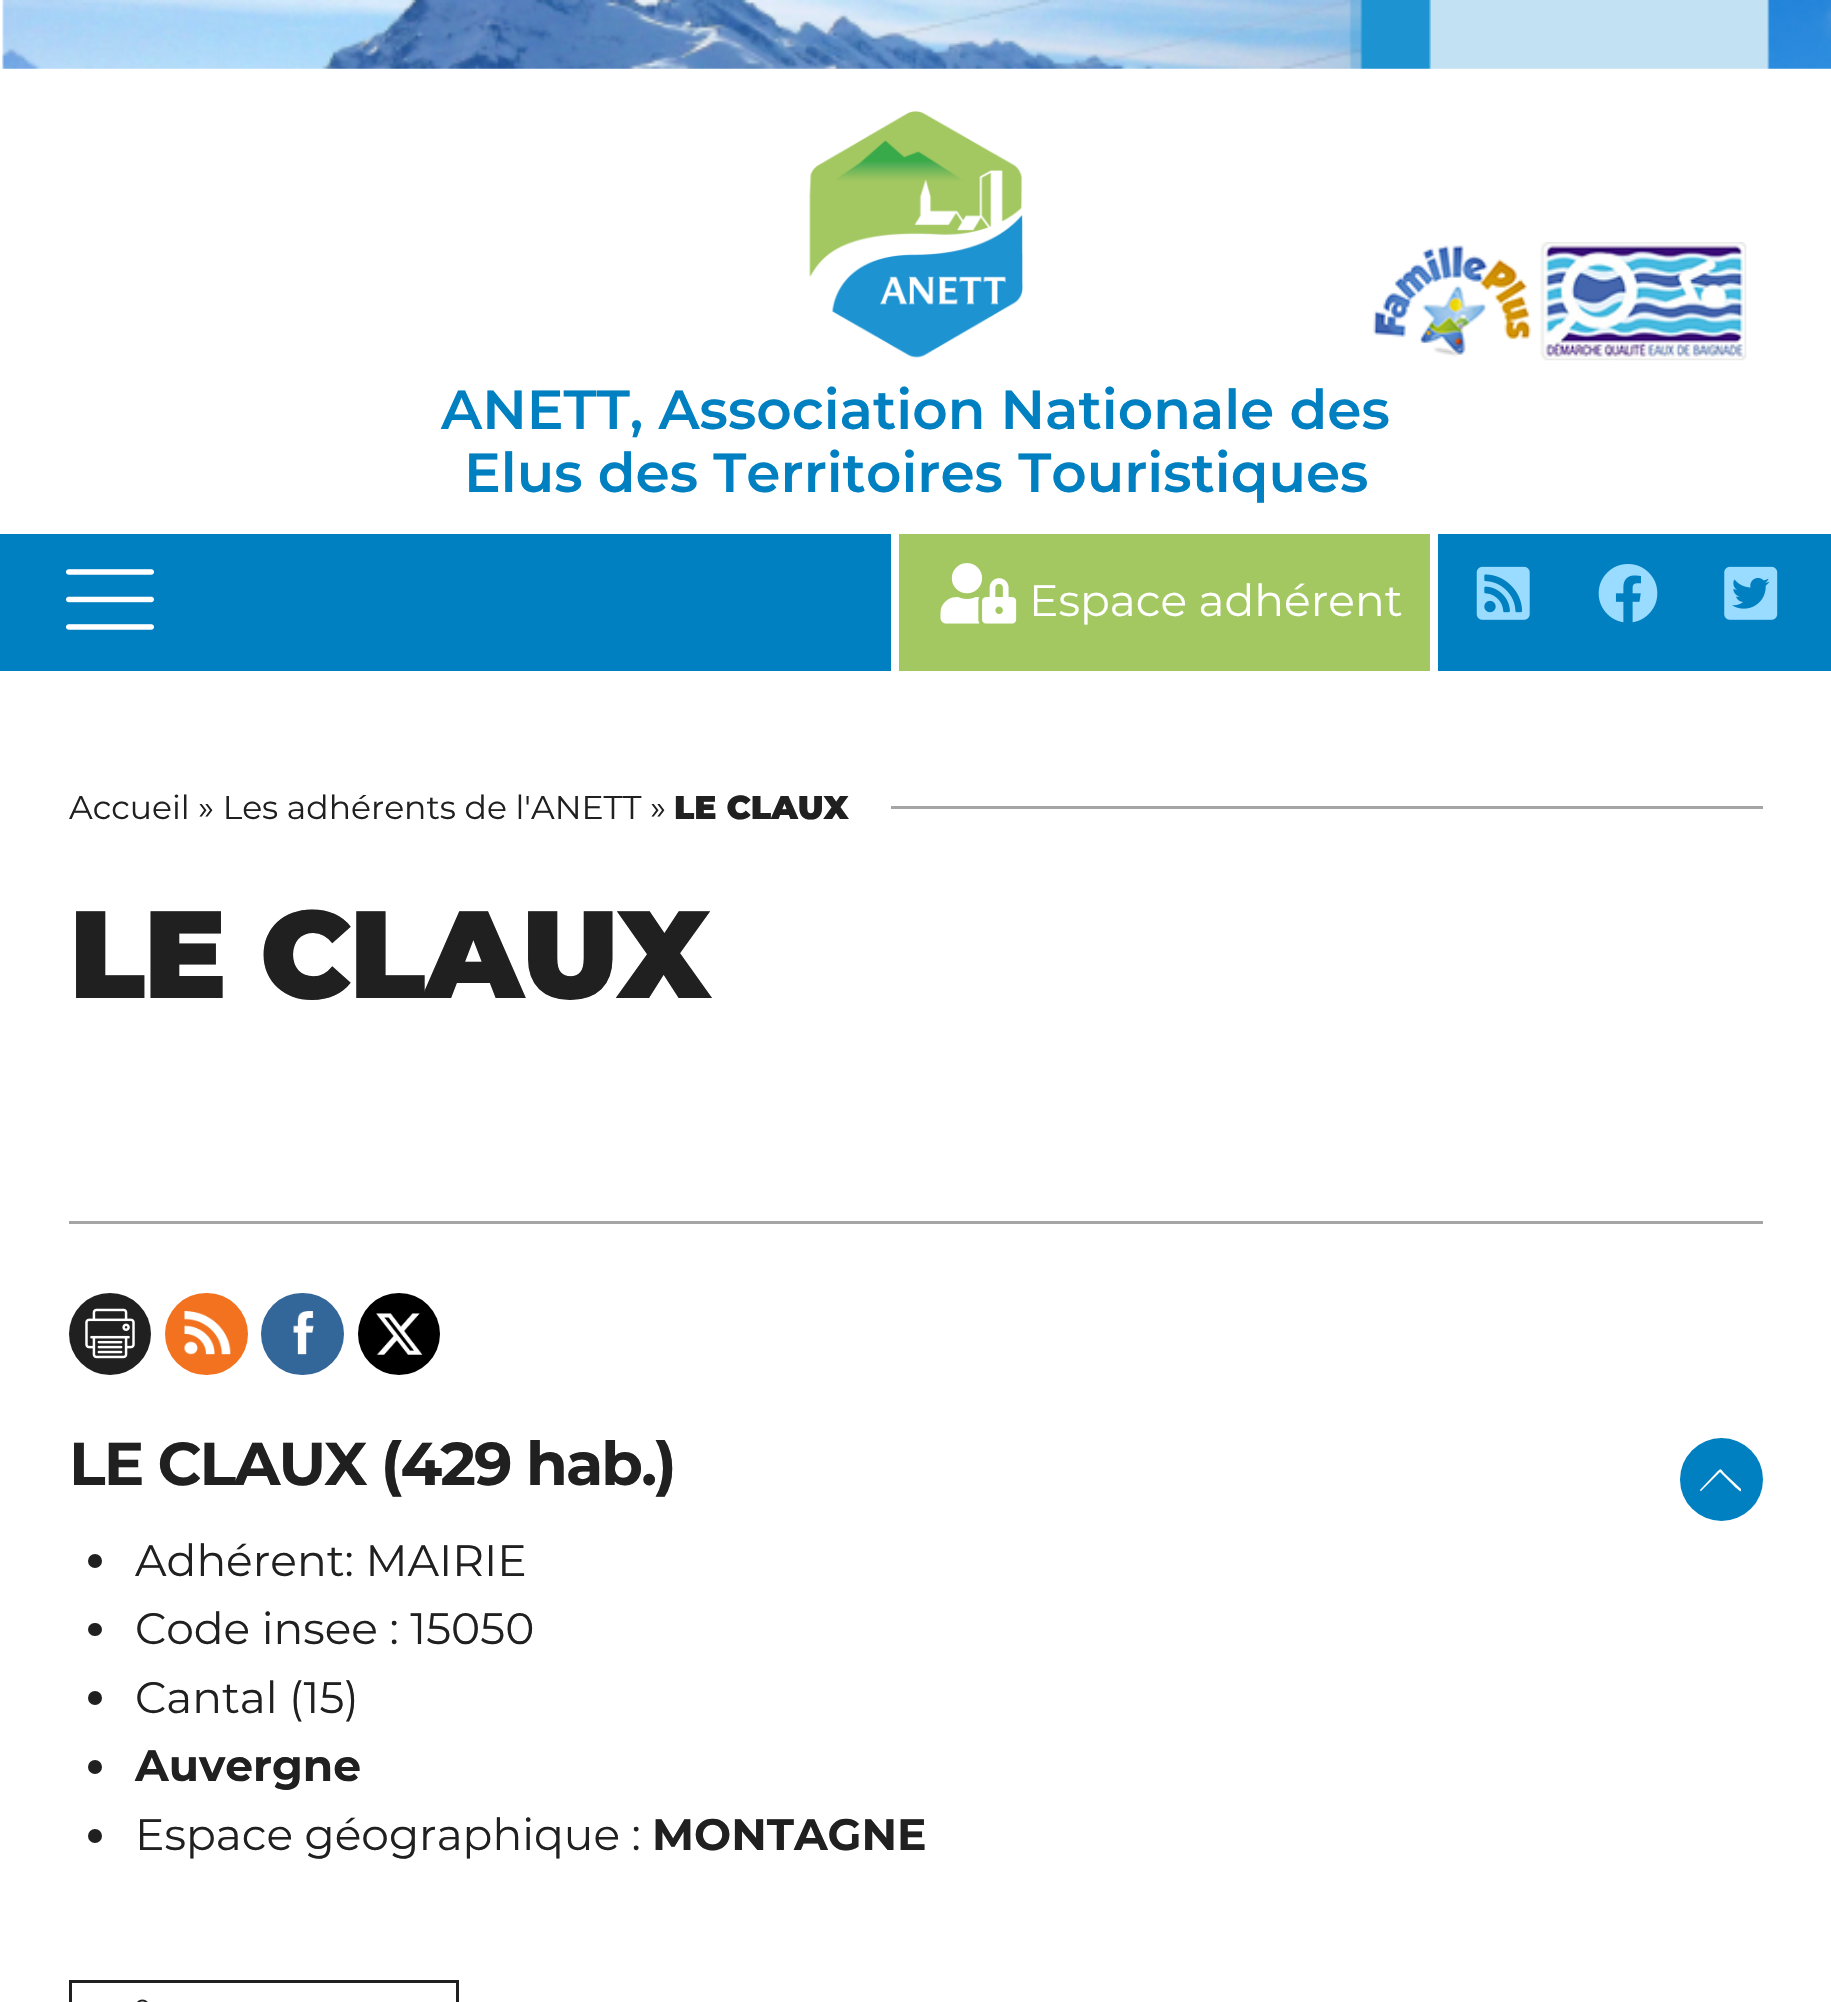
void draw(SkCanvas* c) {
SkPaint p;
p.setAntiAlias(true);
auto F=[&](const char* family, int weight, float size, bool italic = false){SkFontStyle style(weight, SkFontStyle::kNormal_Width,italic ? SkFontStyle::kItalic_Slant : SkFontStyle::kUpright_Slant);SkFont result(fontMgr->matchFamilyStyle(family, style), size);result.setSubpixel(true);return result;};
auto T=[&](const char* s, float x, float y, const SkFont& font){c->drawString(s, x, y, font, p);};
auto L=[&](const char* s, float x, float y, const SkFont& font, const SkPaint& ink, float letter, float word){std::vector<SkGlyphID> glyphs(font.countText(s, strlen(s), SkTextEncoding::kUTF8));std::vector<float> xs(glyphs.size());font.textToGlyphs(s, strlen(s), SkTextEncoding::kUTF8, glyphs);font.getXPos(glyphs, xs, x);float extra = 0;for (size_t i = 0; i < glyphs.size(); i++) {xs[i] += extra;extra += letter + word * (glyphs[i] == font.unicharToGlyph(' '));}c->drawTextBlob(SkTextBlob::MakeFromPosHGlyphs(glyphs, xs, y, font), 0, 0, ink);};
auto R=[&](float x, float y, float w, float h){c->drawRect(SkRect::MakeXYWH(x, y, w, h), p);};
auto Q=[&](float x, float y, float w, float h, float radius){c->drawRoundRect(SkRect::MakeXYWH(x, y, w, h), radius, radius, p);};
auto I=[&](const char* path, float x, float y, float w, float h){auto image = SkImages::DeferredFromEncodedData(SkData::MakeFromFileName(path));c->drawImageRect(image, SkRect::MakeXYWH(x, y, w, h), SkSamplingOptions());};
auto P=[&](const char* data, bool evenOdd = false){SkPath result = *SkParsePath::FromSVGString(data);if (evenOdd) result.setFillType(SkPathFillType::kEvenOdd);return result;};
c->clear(0xffffffff);
I("1.png",0,0,1831,69);
I("2.png",809,111,214,247);
I("3.png",1373,245,159,112);
I("4.png",1540,242,207,119);
auto f1 = F("Montserrat",600,55);
p.setColor(0xff007fc1);
T("ANETT, Association Nationale des",441,429,f1);
T("Elus des Territoires Touristiques",464,492,f1);
R(0,534,1831,137);
I("5.png",66,569,88,61);
p.setColor(0xffa3c861);
R(899,534,531,137);
p.setColor(0xffffffff);
R(1430,534,8,137);
R(891,534,8,137);
I("6.png",940,563,77,61);
auto f2 = F("Montserrat",400,44);
T("Espace adhérent",1029,616,f2);
I("7.png",1476,566,54,54);
I("8.png",1598,564,60,59);
I("9.png",1724,566,54,54);
auto f3 = F("Montserrat",400,33);
p.setColor(0xff202020);
T("Accueil » Les adhérents de l'ANETT »",69,819,f3);
auto f4 = F("Montserrat",900,33);
T("LE CLAUX",674,819,f4);
p.setColor(0xffa5a5a5);
R(891,806,872,3);
auto f5 = F("Montserrat",900,123.75);
p.setColor(0xff202020);
L("LE CLAUX",69,998,f5,p,-1.9,0);
p.setColor(0xffa5a5a5);
R(69,1221,1694,3);
p.setColor(0xff202020);
c->drawCircle(110,1334,41,p);
I("10.png",85,1308,50,51);
p.setColor(0xfff2721f);
Q(165,1293,83,82,41);
I("11.png",184,1311,47,44);
p.setColor(0xff336699);
Q(261,1293,83,82,41);
I("12.png",293,1311,21,44);
p.setColor(0xff000000);
c->drawCircle(399,1334,41,p);
I("13.png",376,1313,47,42);
auto f6 = F("Montserrat",700,60.5);
p.setColor(0xff202020);
L("LE CLAUX (429 hab.)",69,1485,f6,p,-1.9,0);
c->drawCircle(95,1561,7,p);
T("Adhérent: MAIRIE",135,1576,f2);
Q(88,1623,14,13,6.5);
T("Code insee : 15050",135,1644,f2);
c->drawCircle(95,1698,7,p);
T("Cantal (15)",135,1713,f2);
c->drawCircle(95,1767,7,p);
auto f7 = F("Montserrat",700,44);
T("Auvergne",135,1781,f7);
c->drawCircle(95,1836,7,p);
T("Espace géographique :",135,1850,f2);
T("MONTAGNE",652,1850,f7);
p.setStroke(true);
p.setStrokeWidth(3);
c->drawRect(SkRect::MakeXYWH(70.5,1981.5,387,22),p);
I("14.png",137,1999,11,3);
p.setStroke(false);
p.setColor(0xff007fc1);
c->drawCircle(1721.5,1479.5,41.5,p);
p.setColor(0xffffffff);
c->drawPath(P("M1700 1490c0 1 1 1 1 1l19-19l16 16c2 1 4 4 5 3v-2l-17-16c-4-5-3-5-8 0z"),p);
}
